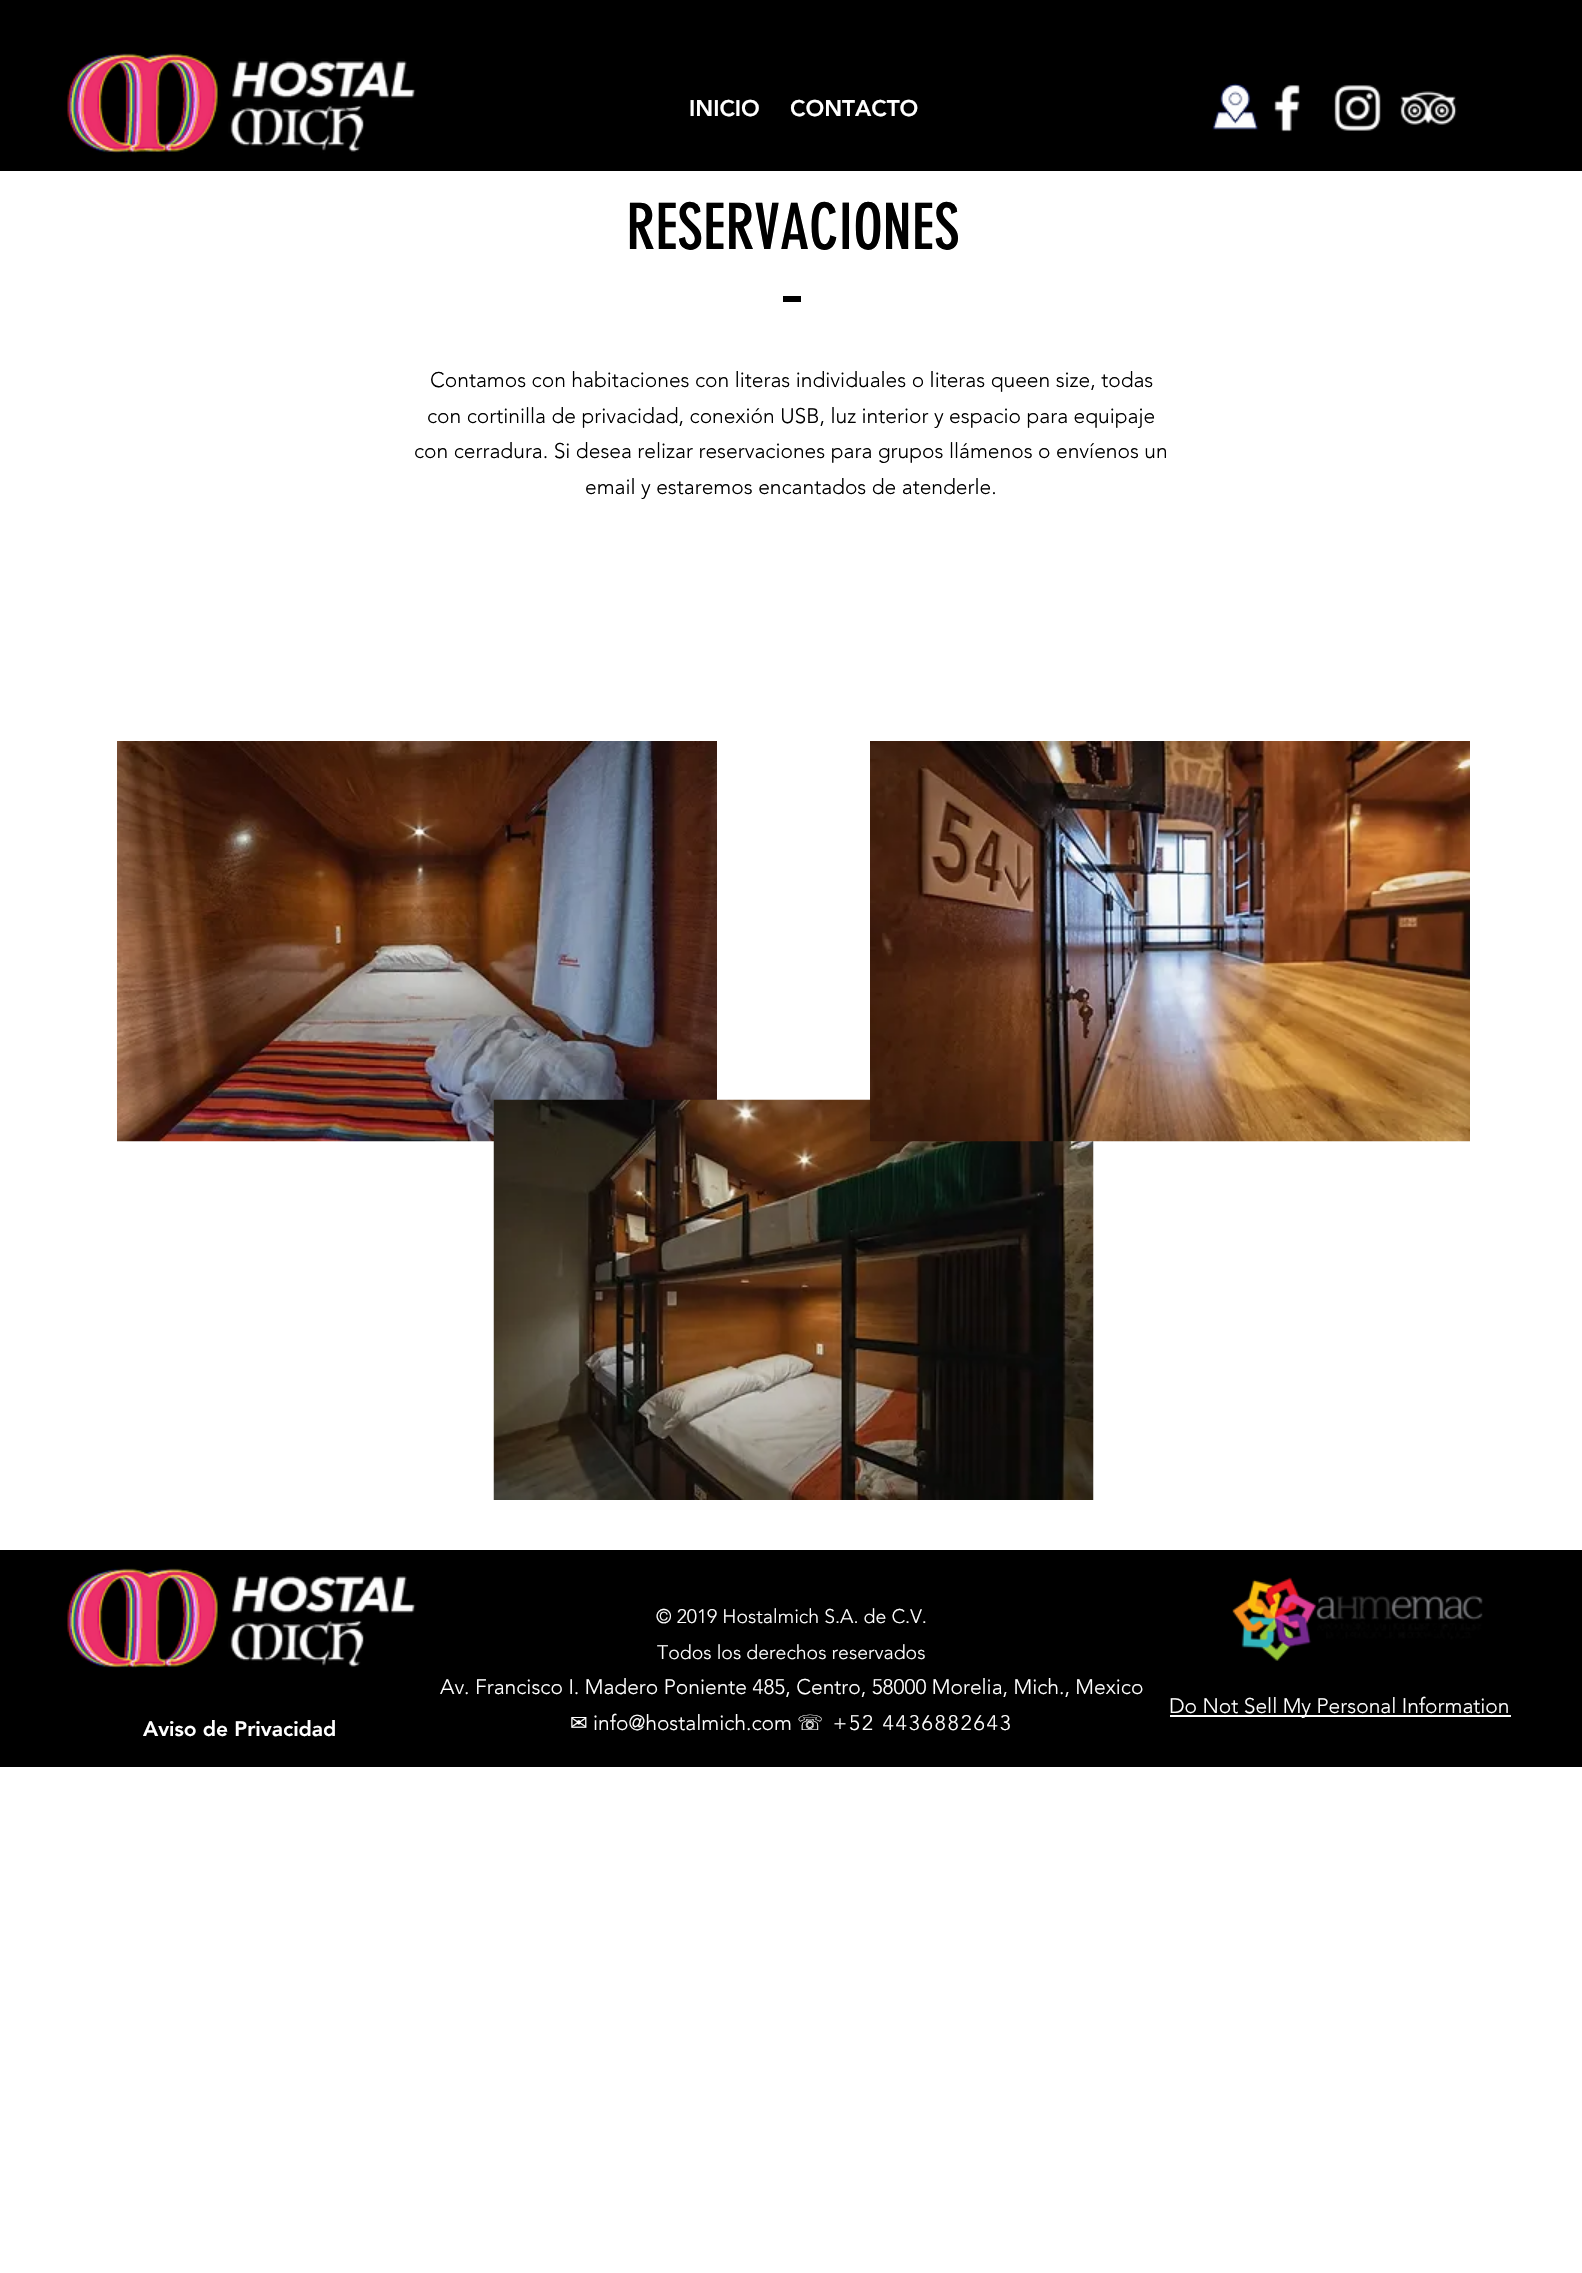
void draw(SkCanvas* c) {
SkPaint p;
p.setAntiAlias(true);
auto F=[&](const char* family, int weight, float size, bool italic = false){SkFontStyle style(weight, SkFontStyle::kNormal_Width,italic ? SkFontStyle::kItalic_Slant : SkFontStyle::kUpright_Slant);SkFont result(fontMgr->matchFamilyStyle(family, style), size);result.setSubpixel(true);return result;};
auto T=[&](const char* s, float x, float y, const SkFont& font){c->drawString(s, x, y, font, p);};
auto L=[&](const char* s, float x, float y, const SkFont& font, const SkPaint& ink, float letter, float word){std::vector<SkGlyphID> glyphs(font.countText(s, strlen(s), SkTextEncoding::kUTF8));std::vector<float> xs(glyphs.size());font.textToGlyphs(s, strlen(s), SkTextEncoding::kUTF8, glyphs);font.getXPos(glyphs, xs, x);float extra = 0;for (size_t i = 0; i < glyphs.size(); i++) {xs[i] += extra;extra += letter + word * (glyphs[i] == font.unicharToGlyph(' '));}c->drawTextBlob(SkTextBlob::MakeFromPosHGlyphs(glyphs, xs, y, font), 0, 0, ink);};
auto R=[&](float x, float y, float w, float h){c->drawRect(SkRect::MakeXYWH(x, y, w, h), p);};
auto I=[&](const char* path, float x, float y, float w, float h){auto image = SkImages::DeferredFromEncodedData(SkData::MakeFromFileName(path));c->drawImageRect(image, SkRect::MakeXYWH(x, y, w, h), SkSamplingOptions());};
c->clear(0xffffffff);
p.setColor(0xff000000);
R(0,0,1582,171);
I("1.png",67,53,349,100);
auto f1 = F("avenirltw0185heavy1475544",900,22.5);
p.setColor(0xffffffff);
T("INICIO",689,116,f1);
T("CONTACTO",790,116,f1);
I("2.png",1212,83,47,48);
I("3.png",1274,85,26,47);
I("4.png",1334,85,47,46);
I("5.png",1400,91,57,34);
auto f2 = F("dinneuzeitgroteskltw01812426",400,63);
p.setColor(0xff000000);
T("RESERVACIONES",626,249,f2);
R(783,296,18,6);
auto f3 = F("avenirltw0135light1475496",300,21);
T("Contamos con habitaciones con literas individuales o literas queen size, todas",430,387,f3);
T("con cortinilla de privacidad, conexión USB, luz interior y espacio para equipaje",427,423,f3);
T("con cerradura. Si desea relizar reservaciones para grupos llámenos o envíenos un",414,458,f3);
T("email y estaremos encantados de atenderle.",585,494,f3);
I("6.png",117,741,600,401);
I("8.png",493,1099,601,401);
I("7.png",870,741,600,401);
R(0,1550,1582,217);
I("1.png",67,1568,349,100);
auto f4 = F("avenirltw0135light1475496",300,19.5);
p.setColor(0xffffffff);
T("© 2019 Hostalmich S.A. de C.V.",656,1623,f4);
T("Todos los derechos reservados",657,1659,f4);
T("Av. Francisco I. Madero Poniente 485, Centro, 58000 Morelia, Mich., Mexico",440,1694,f3);
auto f5 = F("DejaVu Sans",400,21);
T("✉",570,1730,f5);
T("info@hostalmich.com",593,1730,f3);
L("☏",797,1730,f5,p,2.1,0);
L("+52 4436882643",833,1730,f3,p,2.1,0);
I("9.png",1232,1577,251,84);
R(1170,1715,341,2);
T("Do Not Sell My Personal Information",1169,1713,f3);
auto f6 = F("avenirltw0185heavy1475544",900,21);
T("Aviso de Privacidad",143,1736,f6);
}
